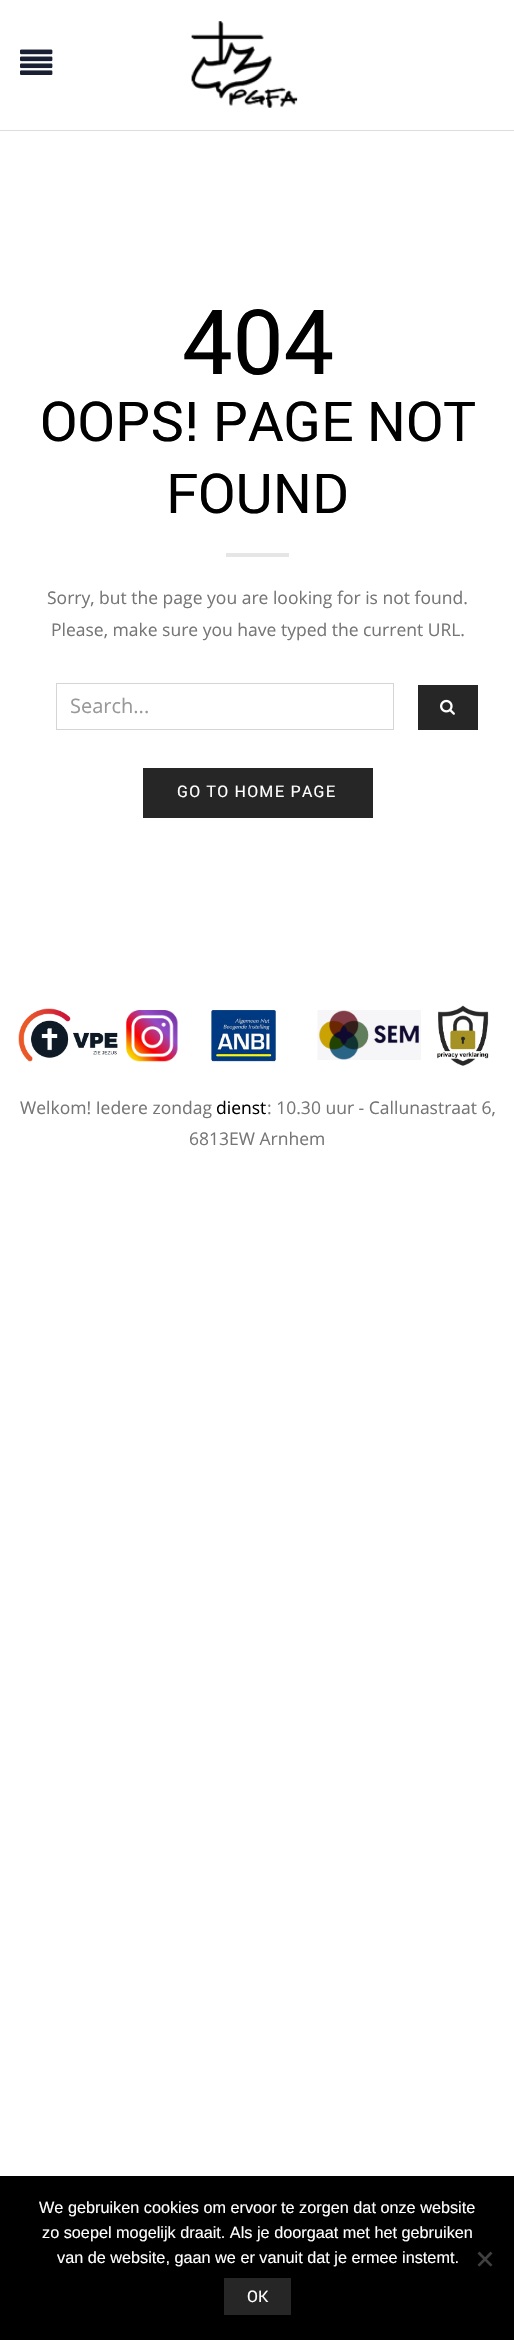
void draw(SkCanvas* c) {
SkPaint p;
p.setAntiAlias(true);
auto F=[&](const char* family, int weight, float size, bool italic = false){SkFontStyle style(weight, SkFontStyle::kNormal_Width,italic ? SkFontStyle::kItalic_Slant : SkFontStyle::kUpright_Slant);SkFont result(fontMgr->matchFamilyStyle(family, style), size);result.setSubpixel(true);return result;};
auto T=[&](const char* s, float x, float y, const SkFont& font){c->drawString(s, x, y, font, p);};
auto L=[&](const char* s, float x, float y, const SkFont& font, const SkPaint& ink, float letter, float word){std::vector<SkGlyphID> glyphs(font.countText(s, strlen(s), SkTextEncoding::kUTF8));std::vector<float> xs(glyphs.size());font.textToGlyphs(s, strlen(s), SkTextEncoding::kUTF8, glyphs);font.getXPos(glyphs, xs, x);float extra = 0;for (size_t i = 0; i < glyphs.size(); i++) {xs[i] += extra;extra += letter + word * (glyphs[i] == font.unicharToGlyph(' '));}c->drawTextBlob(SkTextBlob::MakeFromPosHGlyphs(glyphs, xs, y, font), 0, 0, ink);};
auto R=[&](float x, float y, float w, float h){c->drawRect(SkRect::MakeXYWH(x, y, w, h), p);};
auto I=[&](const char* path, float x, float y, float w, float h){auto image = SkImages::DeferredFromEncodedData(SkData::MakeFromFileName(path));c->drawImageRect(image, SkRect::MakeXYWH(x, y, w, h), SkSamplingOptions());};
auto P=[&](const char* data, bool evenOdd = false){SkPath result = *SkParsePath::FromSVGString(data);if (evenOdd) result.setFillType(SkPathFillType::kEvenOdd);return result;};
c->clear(0xffffffff);
I("1.png",20,49,33,26);
I("2.png",191,21,107,87);
p.setColor(0xffdddddd);
R(0,130,514,1);
auto f1 = F("Roboto",400,90);
p.setColor(0xff000000);
T("404",182,374,f1);
auto f2 = F("Roboto",400,55);
T("OOPS! PAGE NOT",40,441,f2);
T("FOUND",166,513,f2);
p.setColor(0xffe6e6e6);
R(226,553,63,4);
auto f3 = F("Open Sans",400,17.5);
p.setColor(0xff767676);
T("Sorry, but the page you are looking for is not found.",47,604,f3);
T("Please, make sure you have typed the current URL.",51,636,f3);
p.setStroke(true);
p.setStrokeWidth(1);
p.setColor(0xffd5d5d5);
c->drawRect(SkRect::MakeXYWH(56.5,683.5,337,46),p);
auto f4 = F("Open Sans",400,20);
p.setStroke(false);
p.setColor(0xff999999);
T("Search...",70,713,f4);
p.setColor(0xff262626);
R(418,685,60,45);
I("3.png",440,699,15,16);
R(143,768,230,50);
auto f5 = F("Roboto",400,16);
p.setColor(0xffffffff);
L("GO TO HOME PAGE",177,797,f5,p,1.25,0);
I("4.png",18,1008,100,54);
I("5.png",126,1010,52,52);
I("6.png",211,1010,65,52);
I("7.png",317,1010,104,50);
I("8.png",437,1005,52,61);
p.setColor(0xff767676);
T("Welkom! Iedere zondag",20,1114,f3);
p.setColor(0xff000000);
T("dienst",216,1114,f3);
p.setColor(0xff767676);
T(": 10.30 uur - Callunastraat 6,",267,1114,f3);
T("6813EW Arnhem",189,1145,f3);
p.setColor(0xff000000);
R(0,2176,514,164);
auto f6 = F("Liberation Sans",400,16.25);
p.setColor(0xffffffff);
T("We gebruiken cookies om ervoor te zorgen dat onze website",39,2213,f6);
T("zo soepel mogelijk draait. Als je doorgaat met het gebruiken",42,2238,f6);
T("van de website, gaan we er vanuit dat je ermee instemt.",57,2263,f6);
p.setColor(0xff404040);
c->drawPath(P("M490.5 2251.5l2 2l-13 13l-2-1.5z"),p);
c->drawPath(P("M477.5 2253.5l2-2l13 13.5l-2 1.5z"),p);
p.setColor(0xff262626);
R(224,2278,67,37);
p.setColor(0xffffffff);
T("OK",247,2302,f5);
}
